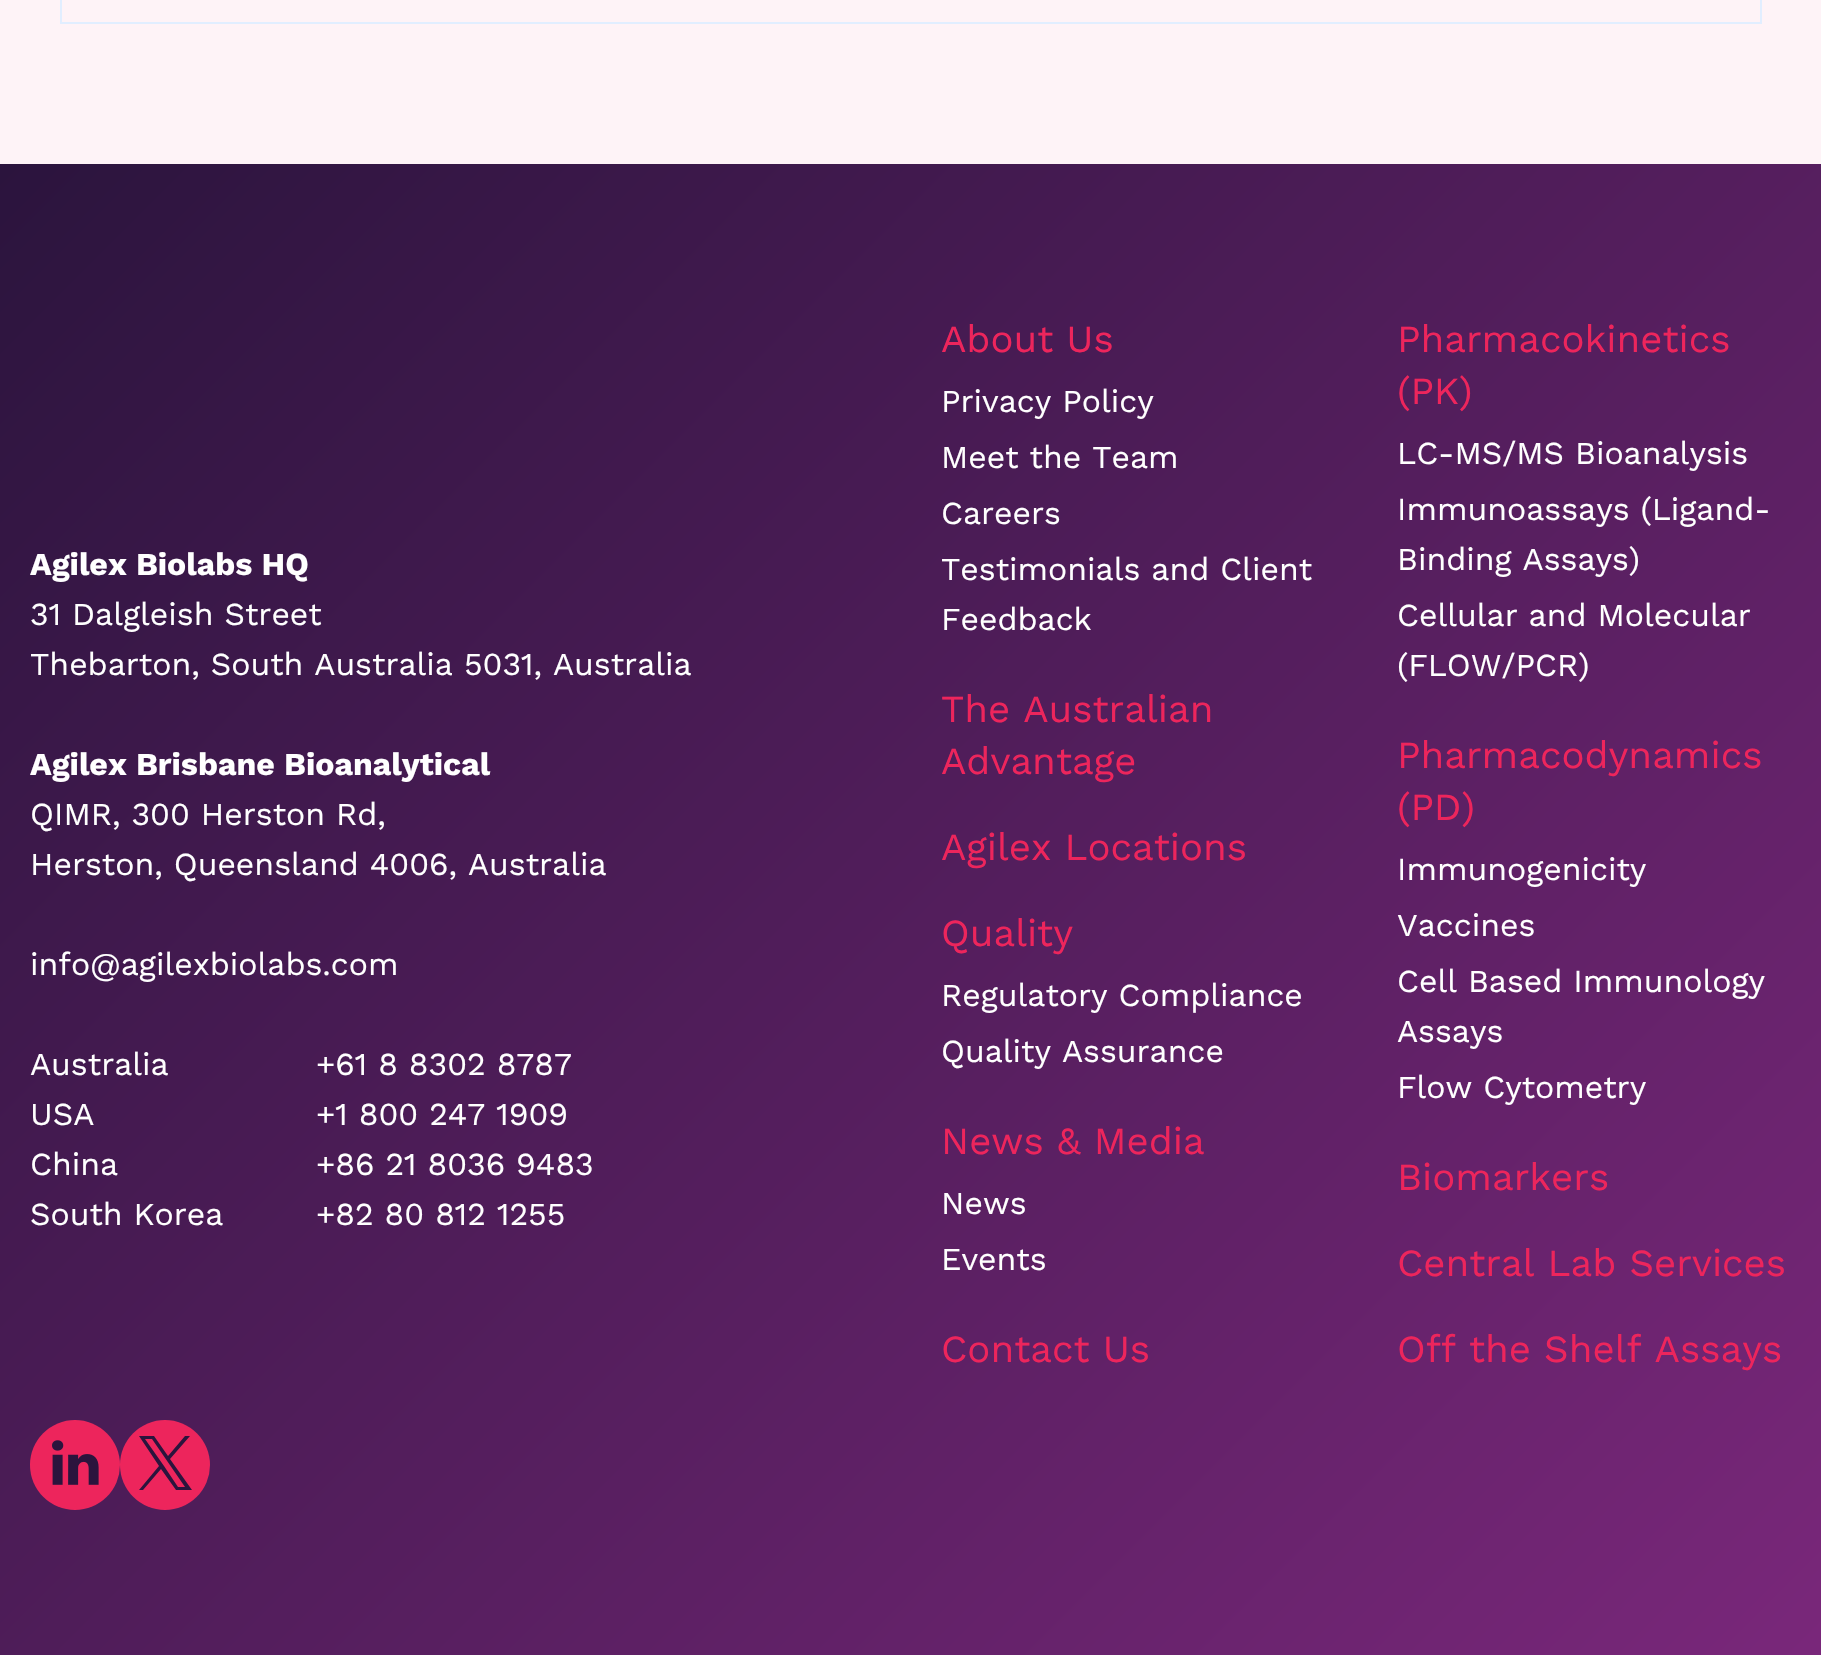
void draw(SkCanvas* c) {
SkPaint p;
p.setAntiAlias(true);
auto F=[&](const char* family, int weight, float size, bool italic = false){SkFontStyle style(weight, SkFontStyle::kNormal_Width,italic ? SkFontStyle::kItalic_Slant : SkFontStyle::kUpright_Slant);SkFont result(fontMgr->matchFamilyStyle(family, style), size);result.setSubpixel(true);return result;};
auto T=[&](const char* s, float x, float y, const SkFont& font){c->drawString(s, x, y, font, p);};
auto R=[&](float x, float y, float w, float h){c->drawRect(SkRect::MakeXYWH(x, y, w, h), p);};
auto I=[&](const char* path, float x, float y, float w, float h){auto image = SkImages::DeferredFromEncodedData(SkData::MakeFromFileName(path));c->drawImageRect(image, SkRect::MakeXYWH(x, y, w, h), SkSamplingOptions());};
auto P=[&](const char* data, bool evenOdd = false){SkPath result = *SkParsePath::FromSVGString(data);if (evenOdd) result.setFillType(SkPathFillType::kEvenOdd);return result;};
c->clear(0xfffef3f7);
p.setStroke(true);
p.setStrokeWidth(2);
p.setColor(0xffe1eeff);
c->drawRect(SkRect::MakeXYWH(61,-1,1700,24),p);
p.setStroke(false);
{
const SkColor colors[] = {0xff2b143d,0xff7d287d};
const float stops[] = {0,1};
const SkPoint ends[] = {{44,120}, {1778,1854}};
p.setShader(SkGradientShader::MakeLinear(ends, colors, stops, 2, SkTileMode::kClamp));
p.setAlpha(255);
}
R(0,164,1821,1491);
auto f1 = F("Work Sans",700,32);
p.setShader(nullptr);
p.setColor(0xffffffff);
T("Agilex Biolabs HQ",30,575,f1);
auto f2 = F("Work Sans",400,32);
T("31 Dalgleish Street",30,625,f2);
T("Thebarton, South Australia 5031, Australia",30,675,f2);
T("Agilex Brisbane Bioanalytical",30,775,f1);
T("QIMR, 300 Herston Rd,",30,825,f2);
T("Herston, Queensland 4006, Australia",30,875,f2);
T("info@agilexbiolabs.com",30,975,f2);
T("Australia",30,1075,f2);
T("+61 8 8302 8787",316,1075,f2);
T("USA",30,1125,f2);
T("+1 800 247 1909",316,1125,f2);
T("China",30,1175,f2);
T("+86 21 8036 9483",316,1175,f2);
T("South Korea",30,1225,f2);
T("+82 80 812 1255",316,1225,f2);
p.setColor(0xffed255c);
c->drawCircle(75,1465,45,p);
I("1.png",52,1440,47,45);
c->drawCircle(165,1465,45,p);
p.setColor(0xff2b143d);
c->drawPath(P("M170 1459l20-23h-5l-17 20l-14-20h-15l20 30l-20 24h4l18-21l15 21h16zm-6 7l-19-27h7l33 48h-7z"),p);
auto f3 = F("Work Sans",400,38.4);
p.setColor(0xffed255c);
T("About Us",941,352,f3);
p.setColor(0xffffffff);
T("Privacy Policy",941,412,f2);
T("Meet the Team",941,468,f2);
T("Careers",941,524,f2);
T("Testimonials and Client",941,580,f2);
T("Feedback",941,630,f2);
p.setColor(0xffed255c);
T("The Australian",941,722,f3);
T("Advantage",941,774,f3);
T("Agilex Locations",941,860,f3);
T("Quality",941,946,f3);
p.setColor(0xffffffff);
T("Regulatory Compliance",941,1006,f2);
T("Quality Assurance",941,1062,f2);
p.setColor(0xffed255c);
T("News & Media",941,1154,f3);
p.setColor(0xffffffff);
T("News",941,1214,f2);
T("Events",941,1270,f2);
p.setColor(0xffed255c);
T("Contact Us",941,1362,f3);
T("Pharmacokinetics",1397,352,f3);
T("(PK)",1397,404,f3);
p.setColor(0xffffffff);
T("LC-MS/MS Bioanalysis",1397,464,f2);
T("Immunoassays (Ligand-",1397,520,f2);
T("Binding Assays)",1397,570,f2);
T("Cellular and Molecular",1397,626,f2);
T("(FLOW/PCR)",1397,676,f2);
p.setColor(0xffed255c);
T("Pharmacodynamics",1397,768,f3);
T("(PD)",1397,820,f3);
p.setColor(0xffffffff);
T("Immunogenicity",1397,880,f2);
T("Vaccines",1397,936,f2);
T("Cell Based Immunology",1397,992,f2);
T("Assays",1397,1042,f2);
T("Flow Cytometry",1397,1098,f2);
p.setColor(0xffed255c);
T("Biomarkers",1397,1190,f3);
T("Central Lab Services",1397,1276,f3);
T("Off the Shelf Assays",1397,1362,f3);
}
